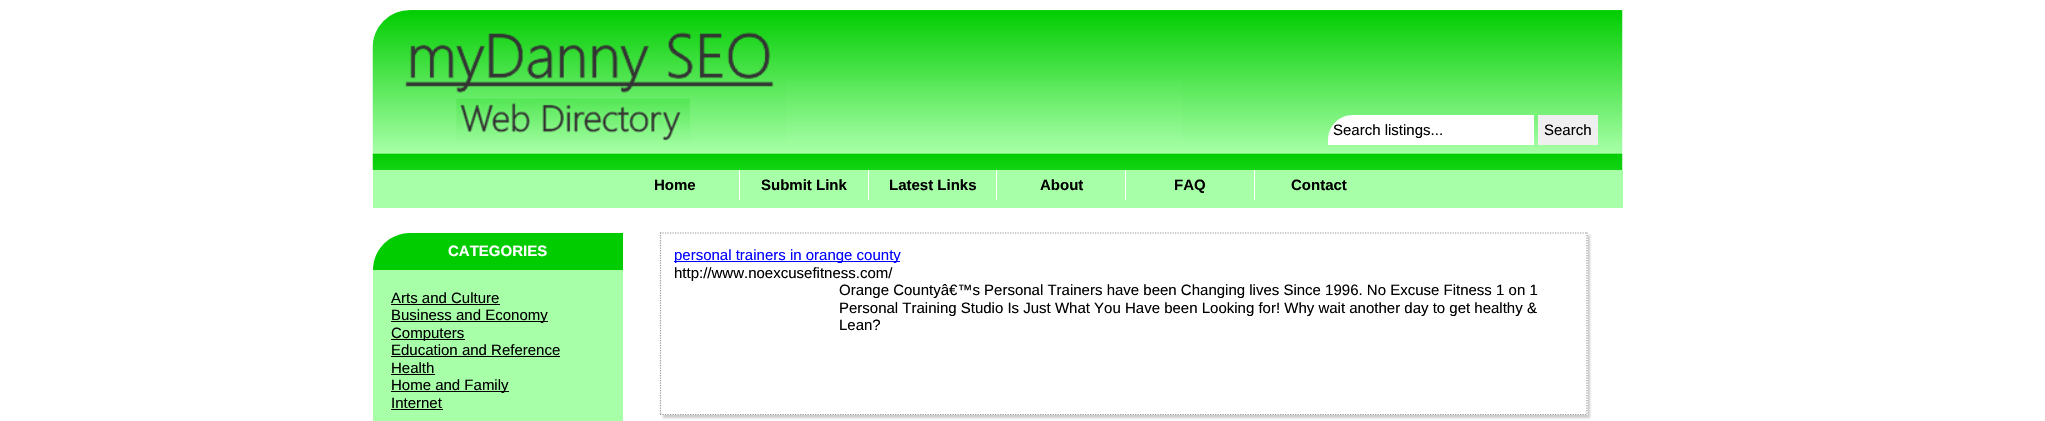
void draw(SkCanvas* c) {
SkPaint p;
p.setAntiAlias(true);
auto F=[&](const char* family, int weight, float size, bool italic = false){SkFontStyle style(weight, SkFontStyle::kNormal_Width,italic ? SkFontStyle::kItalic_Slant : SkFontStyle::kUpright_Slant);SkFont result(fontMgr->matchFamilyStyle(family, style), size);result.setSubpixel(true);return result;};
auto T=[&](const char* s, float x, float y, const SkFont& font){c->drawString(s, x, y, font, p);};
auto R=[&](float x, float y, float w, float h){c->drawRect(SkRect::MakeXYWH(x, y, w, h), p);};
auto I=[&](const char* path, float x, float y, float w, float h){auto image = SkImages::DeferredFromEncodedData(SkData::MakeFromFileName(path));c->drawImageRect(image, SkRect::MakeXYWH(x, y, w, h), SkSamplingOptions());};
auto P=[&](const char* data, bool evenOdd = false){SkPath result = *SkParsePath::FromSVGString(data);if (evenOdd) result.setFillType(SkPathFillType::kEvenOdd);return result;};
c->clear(0xffffffff);
I("1.png",372,10,1251,160);
p.setColor(0xffffffff);
c->drawPath(P("M1353 115h181v30h-206v-5c0-14 11-25 25-25z"),p);
auto f1 = F("Liberation Sans",400,15);
p.setColor(0xff000000);
T("Search listings...",1333,135,f1);
p.setColor(0xffefefef);
R(1538,115,60,30);
p.setColor(0xff000000);
T("Search",1544,135,f1);
p.setColor(0xffa7ffa7);
R(373,170,1250,38);
p.setColor(0xffffffff);
R(739,170,1,30);
auto f2 = F("Liberation Sans",700,15);
p.setColor(0xff000000);
T("Home",654,190,f2);
p.setColor(0xffffffff);
R(868,170,1,30);
p.setColor(0xff000000);
T("Submit Link",761,190,f2);
p.setColor(0xffffffff);
R(996,170,1,30);
p.setColor(0xff000000);
T("Latest Links",889,190,f2);
p.setColor(0xffffffff);
R(1125,170,1,30);
p.setColor(0xff000000);
T("About",1040,190,f2);
p.setColor(0xffffffff);
R(1254,170,1,30);
p.setColor(0xff000000);
T("FAQ",1174,190,f2);
T("Contact",1291,190,f2);
p.setColor(0xff00cc00);
c->drawPath(P("M410 233h213v37h-250c0-20.5 16.5-37 37-37z"),p);
p.setColor(0xffffffff);
T("CATEGORIES",448,256,f2);
p.setColor(0xffa7ffa7);
R(373,270,250,151);
p.setColor(0xff000000);
T("Arts and Culture",391,303,f1);
R(391,304,109,1);
R(391,321,157,1);
T("Business and Economy",391,320,f1);
R(391,339,74,1);
T("Computers",391,338,f1);
T("Education and Reference",391,355,f1);
R(391,356,169,1);
T("Health",391,373,f1);
R(391,374,44,1);
R(391,391,118,1);
T("Home and Family",391,390,f1);
T("Internet",391,408,f1);
R(391,409,52,1);
c->save();
c->clipPath(P("M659 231h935v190h-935zm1 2h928v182h-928z",true),true);
p.setColor(0xffcccccc);
p.setMaskFilter(SkMaskFilter::MakeBlur(kNormal_SkBlurStyle, 1));
c->drawRect(SkRect::MakeXYWH(663,235,927,183),p);
p.setMaskFilter(nullptr);
c->restore();
p.setStroke(true);
p.setStrokeWidth(1.2);
p.setColor(0xff999999);
p.setPathEffect(SkDashPathEffect::Make({{1.25f,1.25f}}, 0));
c->drawPath(P("M660 233h927.5"),p);
p.setPathEffect(nullptr);
p.setPathEffect(SkDashPathEffect::Make({{1.25f,1.25f}}, 0));
c->drawPath(P("M1587 232.5v182.5"),p);
p.setPathEffect(nullptr);
p.setPathEffect(SkDashPathEffect::Make({{1.25f,1.25f}}, 0));
c->drawPath(P("M660 414.5h927.5"),p);
p.setPathEffect(nullptr);
p.setPathEffect(SkDashPathEffect::Make({{1.25f,1.25f}}, 0));
c->drawPath(P("M660.5 232.5v182.5"),p);
p.setPathEffect(nullptr);
p.setStroke(false);
p.setColor(0xff0000ff);
R(674,261,226,1);
T("personal trainers in orange county",674,260,f1);
p.setColor(0xff000000);
T("http://www.noexcusefitness.com/",674,278,f1);
T("Orange Countyâ€™s Personal Trainers have been Changing lives Since 1996. No Excuse Fitness 1 on 1",839,295,f1);
T("Personal Training Studio Is Just What You Have been Looking for! Why wait another day to get healthy &",839,313,f1);
T("Lean?",839,330,f1);
}
